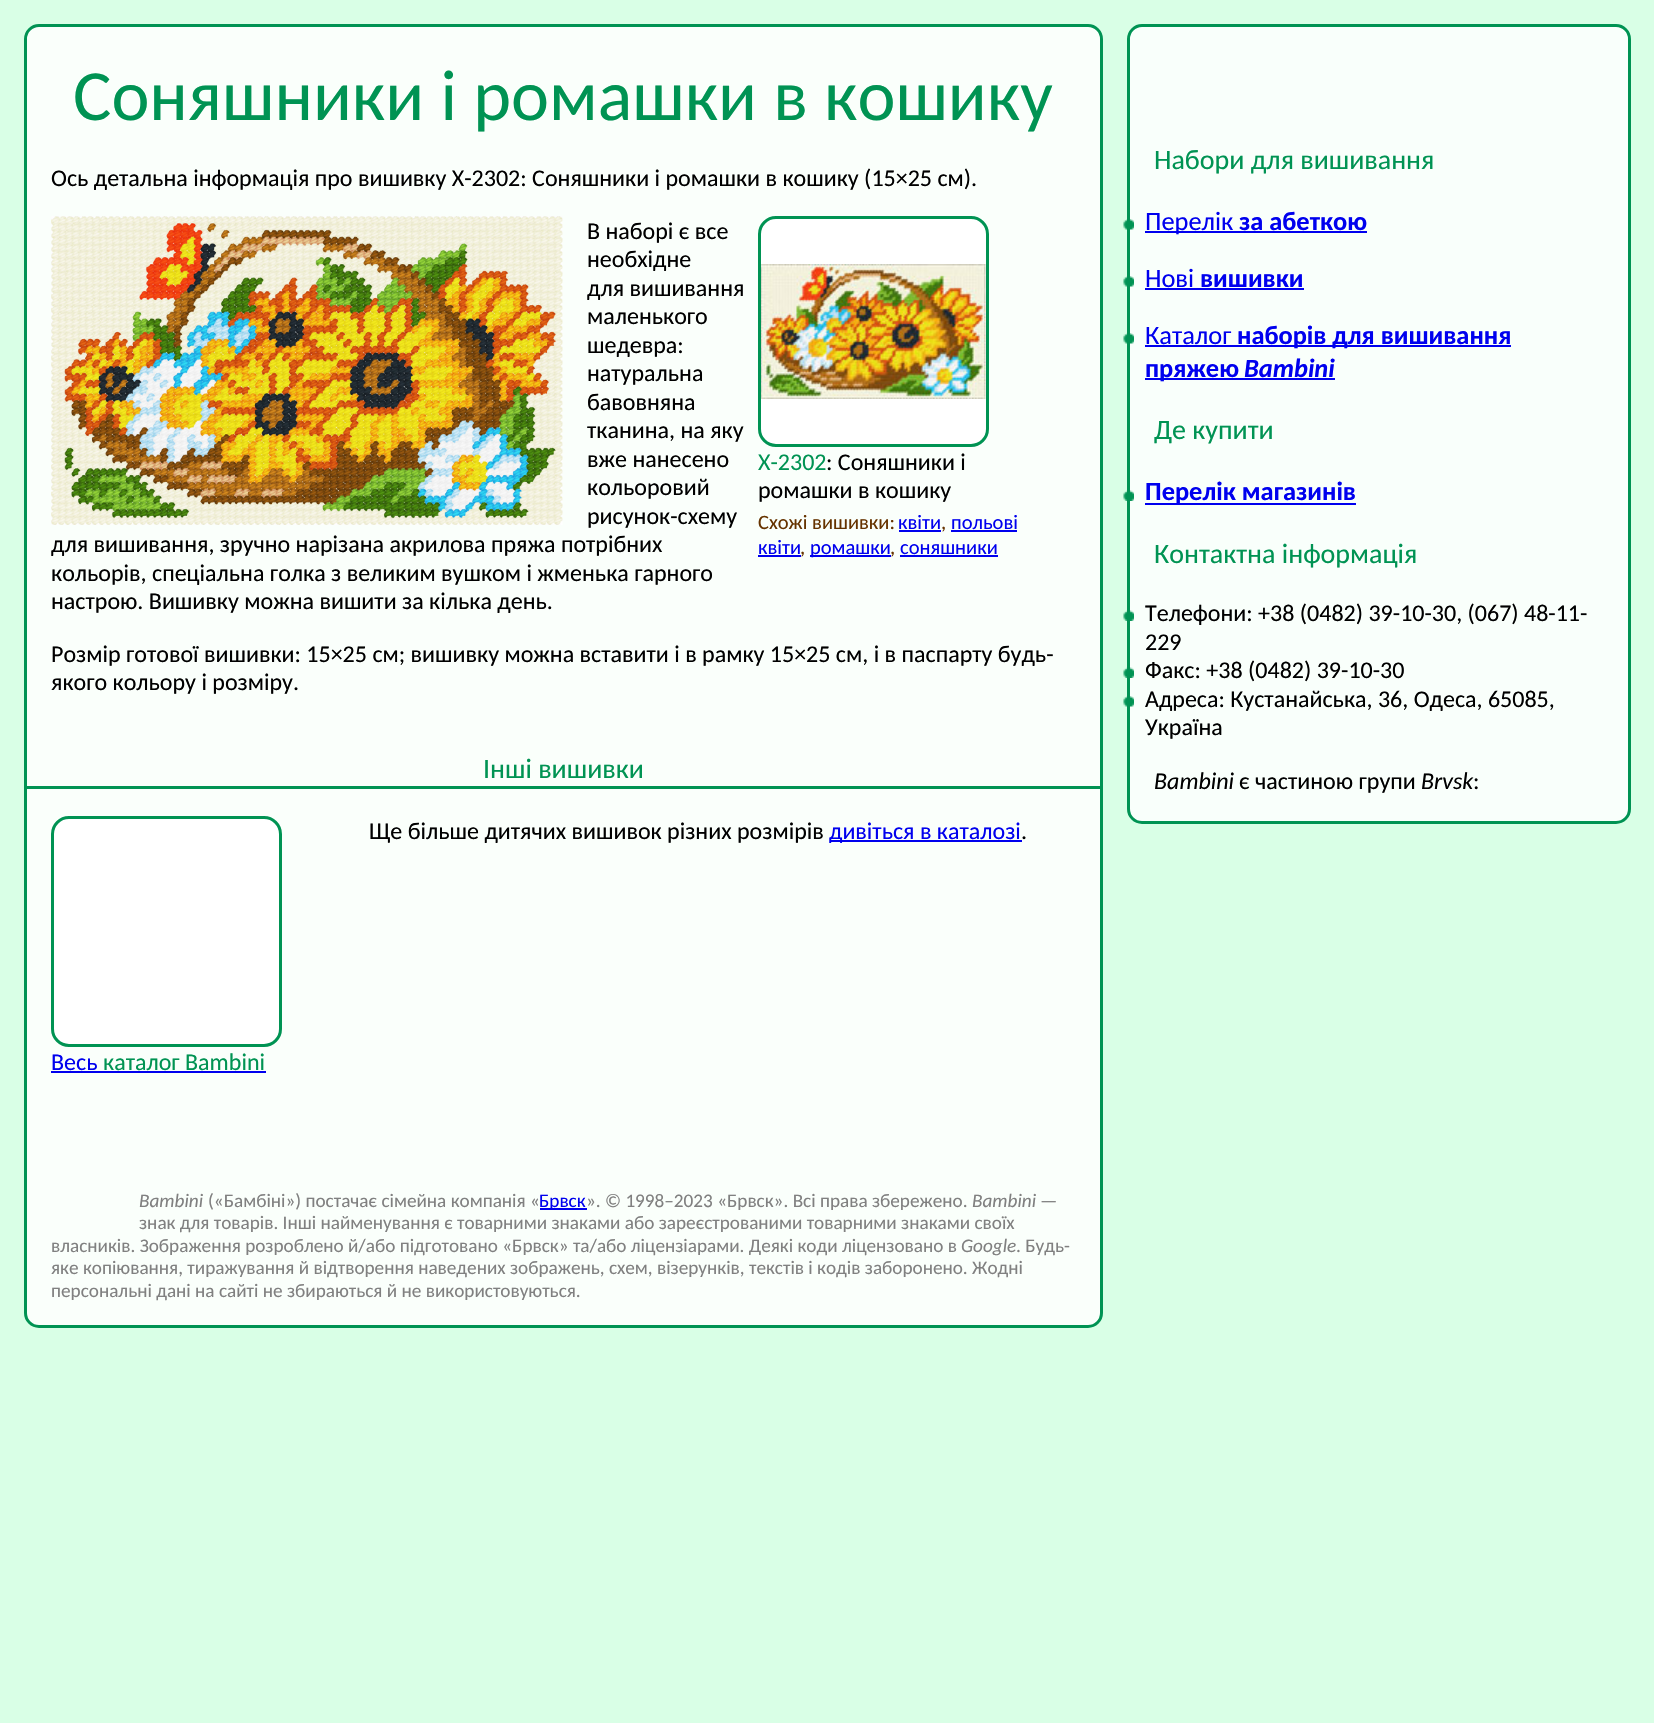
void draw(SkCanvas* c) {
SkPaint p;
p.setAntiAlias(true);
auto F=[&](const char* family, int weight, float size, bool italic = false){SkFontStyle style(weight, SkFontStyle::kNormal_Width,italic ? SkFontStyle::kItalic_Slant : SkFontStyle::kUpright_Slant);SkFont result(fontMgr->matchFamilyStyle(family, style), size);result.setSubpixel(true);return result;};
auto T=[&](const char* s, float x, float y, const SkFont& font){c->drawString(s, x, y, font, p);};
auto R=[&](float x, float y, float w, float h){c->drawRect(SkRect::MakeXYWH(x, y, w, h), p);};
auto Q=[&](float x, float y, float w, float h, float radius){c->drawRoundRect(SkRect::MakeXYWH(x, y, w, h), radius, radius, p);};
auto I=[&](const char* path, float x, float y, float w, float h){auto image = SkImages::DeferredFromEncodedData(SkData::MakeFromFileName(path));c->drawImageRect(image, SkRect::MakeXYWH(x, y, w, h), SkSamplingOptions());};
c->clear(0xffd9ffe6);
p.setColor(0xfffafffb);
c->drawRoundRect(SkRect::MakeXYWH(25.5,25.5,1076,1301),13.5,13.5,p);
p.setStroke(true);
p.setStrokeWidth(3);
p.setColor(0xff009353);
c->drawRoundRect(SkRect::MakeXYWH(25.5,25.5,1076,1301),13.5,13.5,p);
auto f1 = F("Carlito",400,72);
p.setStroke(false);
T("Соняшники і ромашки в кошику",73,120,f1);
auto f2 = F("Carlito",400,24);
p.setColor(0xff000000);
T("Ось детальна інформація про вишивку X-2302: Соняшники і ромашки в кошику (15×25 см).",51,186,f2);
T("В наборі є все",587,239,f2);
T("необхідне",587,267,f2);
T("для вишивання",587,296,f2);
T("маленького",587,324,f2);
T("шедевра:",587,353,f2);
T("натуральна",587,381,f2);
T("бавовняна",587,410,f2);
T("тканина, на яку",587,438,f2);
T("вже нанесено",587,467,f2);
T("кольоровий",587,495,f2);
T("рисунок-схему",587,524,f2);
T("для вишивання, зручно нарізана акрилова пряжа потрібних",51,552,f2);
T("кольорів, спеціальна голка з великим вушком і жменька гарного",51,581,f2);
T("настрою. Вишивку можна вишити за кілька день.",51,609,f2);
I("1.png",51,216,512,309);
p.setColor(0xffffffff);
Q(758,216,231,231,18);
I("2.png",761,264,225,135);
p.setStroke(true);
p.setColor(0xff009353);
c->drawRoundRect(SkRect::MakeXYWH(759.5,217.5,228,228),16.5,16.5,p);
p.setStroke(false);
T("X-2302",758,470,f2);
p.setColor(0xff000000);
T(": Соняшники і",826,470,f2);
T("ромашки в кошику",758,498,f2);
auto f3 = F("Carlito",400,20.5);
p.setColor(0xff663300);
T("Схожі вишивки:",758,529,f3);
p.setColor(0xff0000ee);
T("квіти",898,529,f3);
R(899,530,42,2);
p.setColor(0xff663300);
T(",",941,529,f3);
p.setColor(0xff0000ee);
T("польові",951,529,f3);
R(951,530,66,2);
T("квіти",758,554,f3);
R(758,555,43,2);
p.setColor(0xff663300);
T(",",800,554,f3);
p.setColor(0xff0000ee);
R(810,555,81,2);
T("ромашки",810,554,f3);
p.setColor(0xff663300);
T(",",890,554,f3);
p.setColor(0xff0000ee);
T("соняшники",900,554,f3);
R(900,555,98,2);
p.setColor(0xff000000);
T("Розмір готової вишивки: 15×25 см; вишивку можна вставити і в рамку 15×25 см, і в паспарту будь-",51,662,f2);
T("якого кольору і розміру.",51,690,f2);
p.setColor(0xff009353);
R(26,786,1075,3);
auto f4 = F("Carlito",400,28);
T("Інші вишивки",483,778,f4);
p.setColor(0xff000000);
T("Ще більше дитячих вишивок різних розмірів",369,839,f2);
p.setColor(0xff0000ee);
R(830,840,192,2);
T("дивіться в каталозі",829,839,f2);
p.setColor(0xff000000);
T(".",1021,839,f2);
p.setColor(0xffffffff);
c->drawRoundRect(SkRect::MakeXYWH(52.5,817.5,228,228),16.5,16.5,p);
p.setStroke(true);
p.setColor(0xff009353);
c->drawRoundRect(SkRect::MakeXYWH(52.5,817.5,228,228),16.5,16.5,p);
p.setStroke(false);
p.setColor(0xff0000ee);
T("Весь",51,1070,f2);
R(51,1071,215,2);
p.setColor(0xff009353);
T("каталог Bambini",103,1070,f2);
auto f5 = F("Carlito",400,19.2,true);
p.setColor(0xff808080);
T("Bambini",139,1207,f5);
auto f6 = F("Carlito",400,19.2);
T("(«Бамбіні») постачає сімейна компанія «",208,1207,f6);
p.setColor(0xff0000ee);
R(540,1208,47,2);
T("Брвск",539,1207,f6);
p.setColor(0xff808080);
T("». © 1998–2023 «Брвск». Всі права збережено.",586,1207,f6);
T("Bambini",972,1207,f5);
T("—",1040,1207,f6);
T("знак для товарів. Інші найменування є товарними знаками або зареєстрованими товарними знаками своїх",139,1229,f6);
T("власників. Зображення розроблено й/або підготовано «Брвск» та/або ліцензіарами. Деякі коди ліцензовано в",51,1252,f6);
T("Google",961,1252,f5);
T(". Будь-",1016,1252,f6);
T("яке копіювання, тиражування й відтворення наведених зображень, схем, візерунків, текстів і кодів заборонено. Жодні",51,1274,f6);
T("персональні дані на сайті не збираються й не використовуються.",51,1297,f6);
p.setColor(0xfff9fffb);
c->drawRoundRect(SkRect::MakeXYWH(1128.5,25.5,501,797),13.5,13.5,p);
p.setStroke(true);
p.setColor(0xff009353);
c->drawRoundRect(SkRect::MakeXYWH(1128.5,25.5,501,797),13.5,13.5,p);
p.setStroke(false);
T("Набори для вишивання",1154,169,f4);
I("3.png",1123,219,11,11);
p.setColor(0xff0000ee);
R(1145,231,222,2);
auto f7 = F("Carlito",400,26.4);
T("Перелік",1145,230,f7);
auto f8 = F("Carlito",700,26.4);
T("за абеткою",1239,230,f8);
I("3.png",1123,276,11,11);
T("Нові",1145,287,f7);
T("вишивки",1200,287,f8);
R(1145,288,159,2);
I("3.png",1123,333,11,11);
T("Каталог",1145,344,f7);
R(1145,345,366,2);
T("наборів для вишивання",1237,344,f8);
R(1145,378,190,2);
T("пряжею",1145,377,f8);
auto f9 = F("Carlito",700,26.4,true);
T("Bambini",1244,377,f9);
p.setColor(0xff009353);
T("Де купити",1154,439,f4);
I("4.png",1123,490,11,11);
p.setColor(0xff0000ee);
R(1145,503,211,2);
T("Перелік магазинів",1145,500,f8);
p.setColor(0xff009353);
T("Контактна інформація",1154,563,f4);
I("4.png",1123,610,11,11);
p.setColor(0xff000000);
T("Телефони: +38 (0482) 39-10-30, (067) 48-11-",1145,621,f2);
T("229",1145,650,f2);
I("4.png",1123,667,11,11);
T("Факс: +38 (0482) 39-10-30",1145,678,f2);
I("3.png",1123,696,11,11);
T("Адреса: Кустанайська, 36, Одеса, 65085,",1145,707,f2);
T("Україна",1145,735,f2);
auto f10 = F("Carlito",400,24,true);
T("Bambini",1154,789,f10);
T("є частиною групи",1239,789,f2);
T("Brvsk",1421,789,f10);
T(":",1473,789,f2);
}
